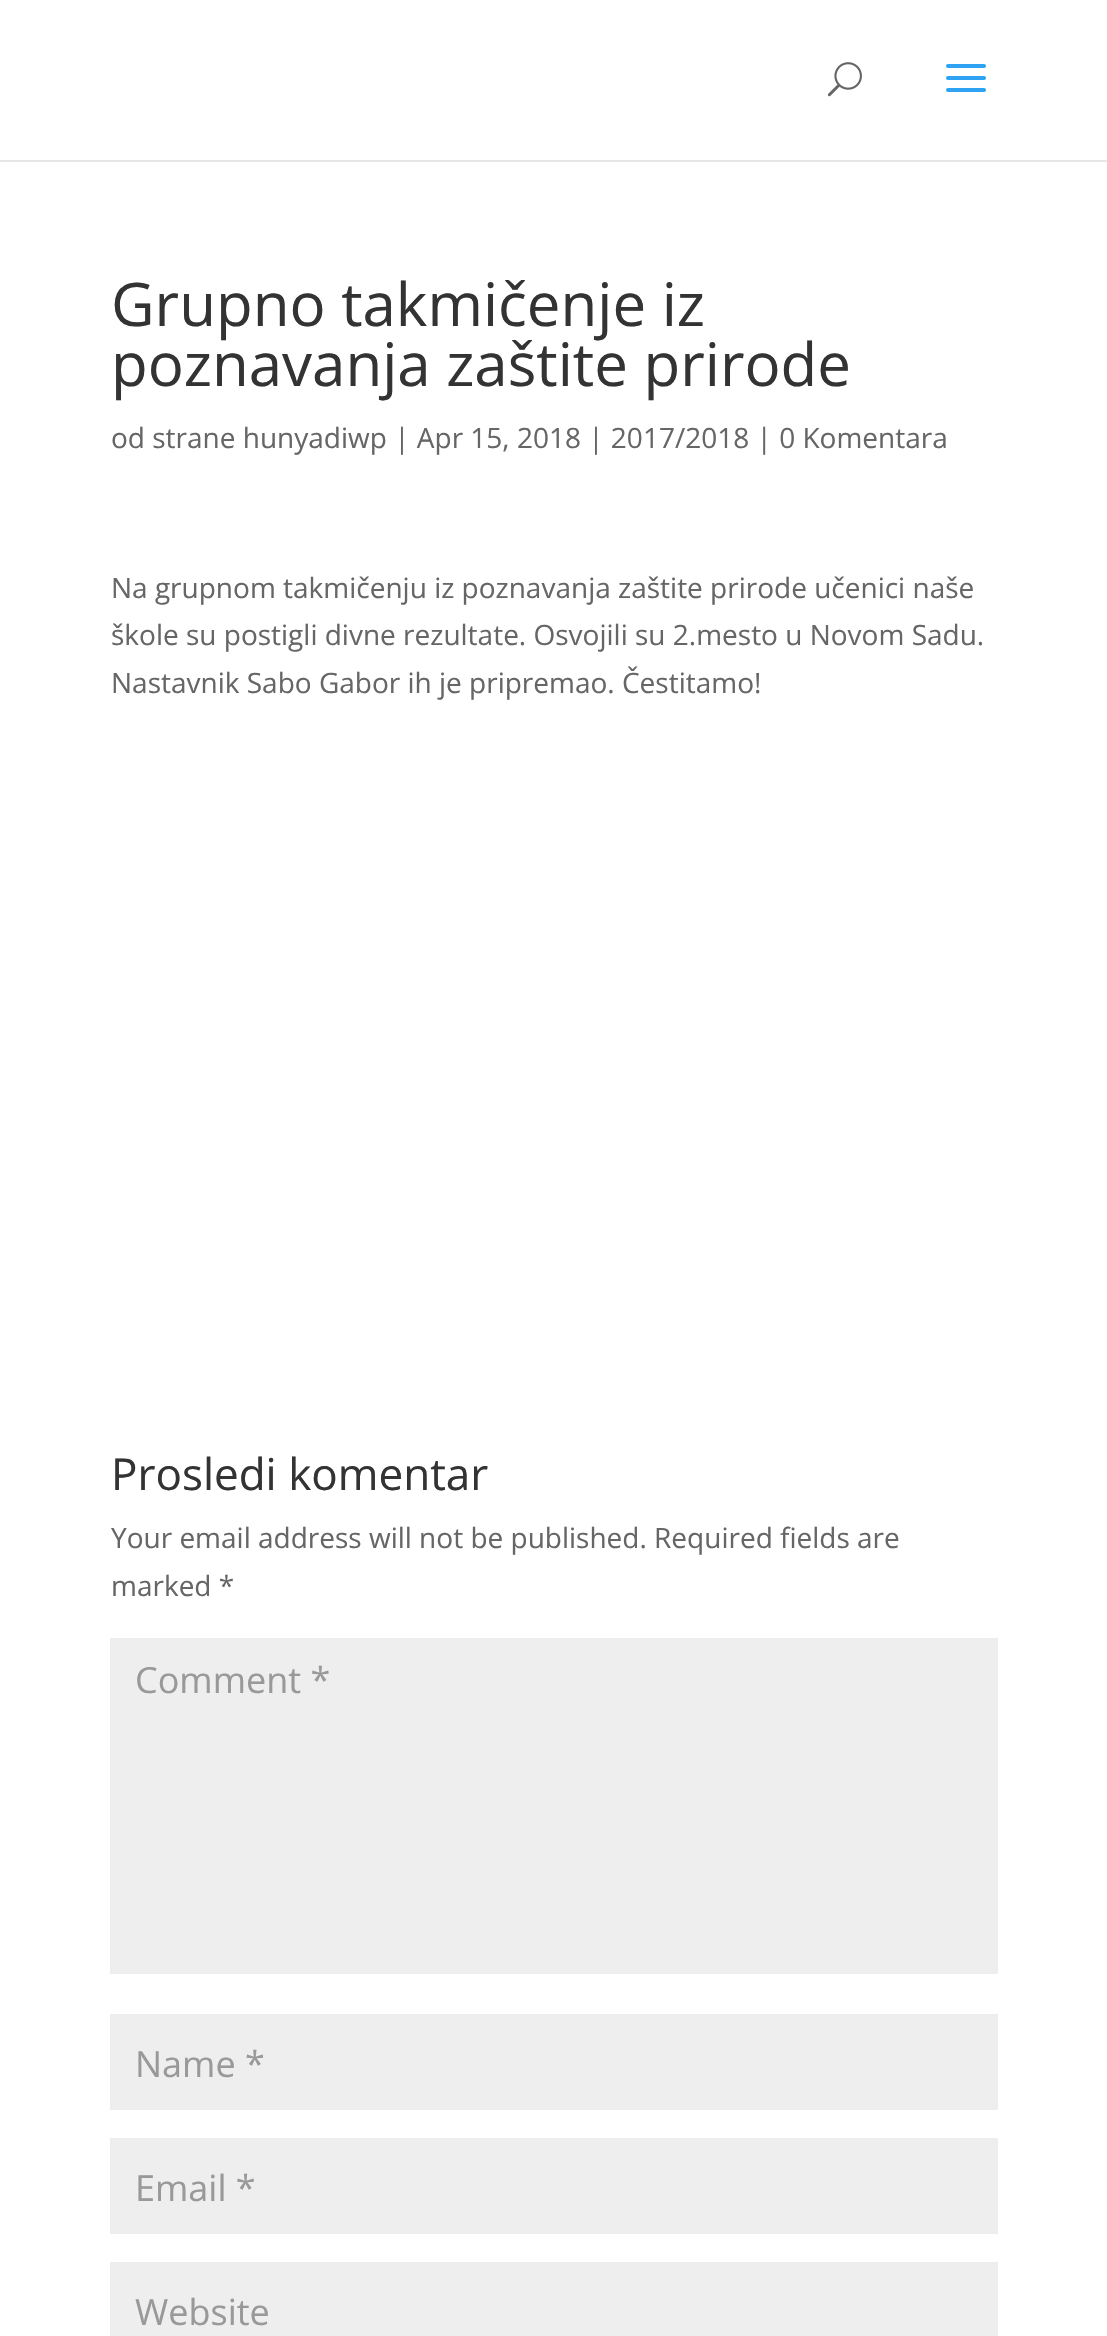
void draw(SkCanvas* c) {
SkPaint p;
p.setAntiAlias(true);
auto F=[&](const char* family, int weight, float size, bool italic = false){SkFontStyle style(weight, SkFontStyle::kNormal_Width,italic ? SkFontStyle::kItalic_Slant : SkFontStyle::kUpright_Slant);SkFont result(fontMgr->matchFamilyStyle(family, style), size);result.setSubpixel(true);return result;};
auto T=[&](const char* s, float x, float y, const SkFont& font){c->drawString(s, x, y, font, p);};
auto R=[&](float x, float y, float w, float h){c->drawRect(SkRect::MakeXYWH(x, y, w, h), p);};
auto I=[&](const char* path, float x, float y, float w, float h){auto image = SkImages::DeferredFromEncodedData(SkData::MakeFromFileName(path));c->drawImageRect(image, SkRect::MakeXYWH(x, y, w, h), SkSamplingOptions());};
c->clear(0xffffffff);
p.setColor(0xffe6e6e6);
R(0,160,1107,2);
I("1.png",827,62,35,35);
I("2.png",946,64,40,28);
auto f1 = F("Open Sans",400,60);
p.setColor(0xff333333);
T("Grupno takmičenje iz",111,326,f1);
T("poznavanja zaštite prirode",111,386,f1);
auto f2 = F("Open Sans",400,28);
p.setColor(0xff666666);
T("od strane hunyadiwp | Apr 15, 2018 | 2017/2018 | 0 Komentara",111,448,f2);
T("Na grupnom takmičenju iz poznavanja zaštite prirode učenici naše",111,598,f2);
T("škole su postigli divne rezultate. Osvojili su 2.mesto u Novom Sadu.",111,645,f2);
T("Nastavnik Sabo Gabor ih je pripremao. Čestitamo!",111,693,f2);
auto f3 = F("Open Sans",400,44);
p.setColor(0xff333333);
T("Prosledi komentar",111,1490,f3);
p.setColor(0xff666666);
T("Your email address will not be published. Required fields are",111,1548,f2);
T("marked *",111,1596,f2);
p.setColor(0xffeeeeee);
R(110,1638,888,336);
auto f4 = F("Open Sans",400,36);
p.setColor(0xff999999);
T("Comment *",135,1693,f4);
p.setColor(0xffeeeeee);
R(110,2014,888,96);
p.setColor(0xff999999);
T("Name *",135,2077,f4);
p.setColor(0xffeeeeee);
R(110,2138,888,96);
p.setColor(0xff999999);
T("Email *",135,2201,f4);
p.setColor(0xffeeeeee);
R(110,2262,888,74);
p.setColor(0xff999999);
T("Website",135,2325,f4);
}
